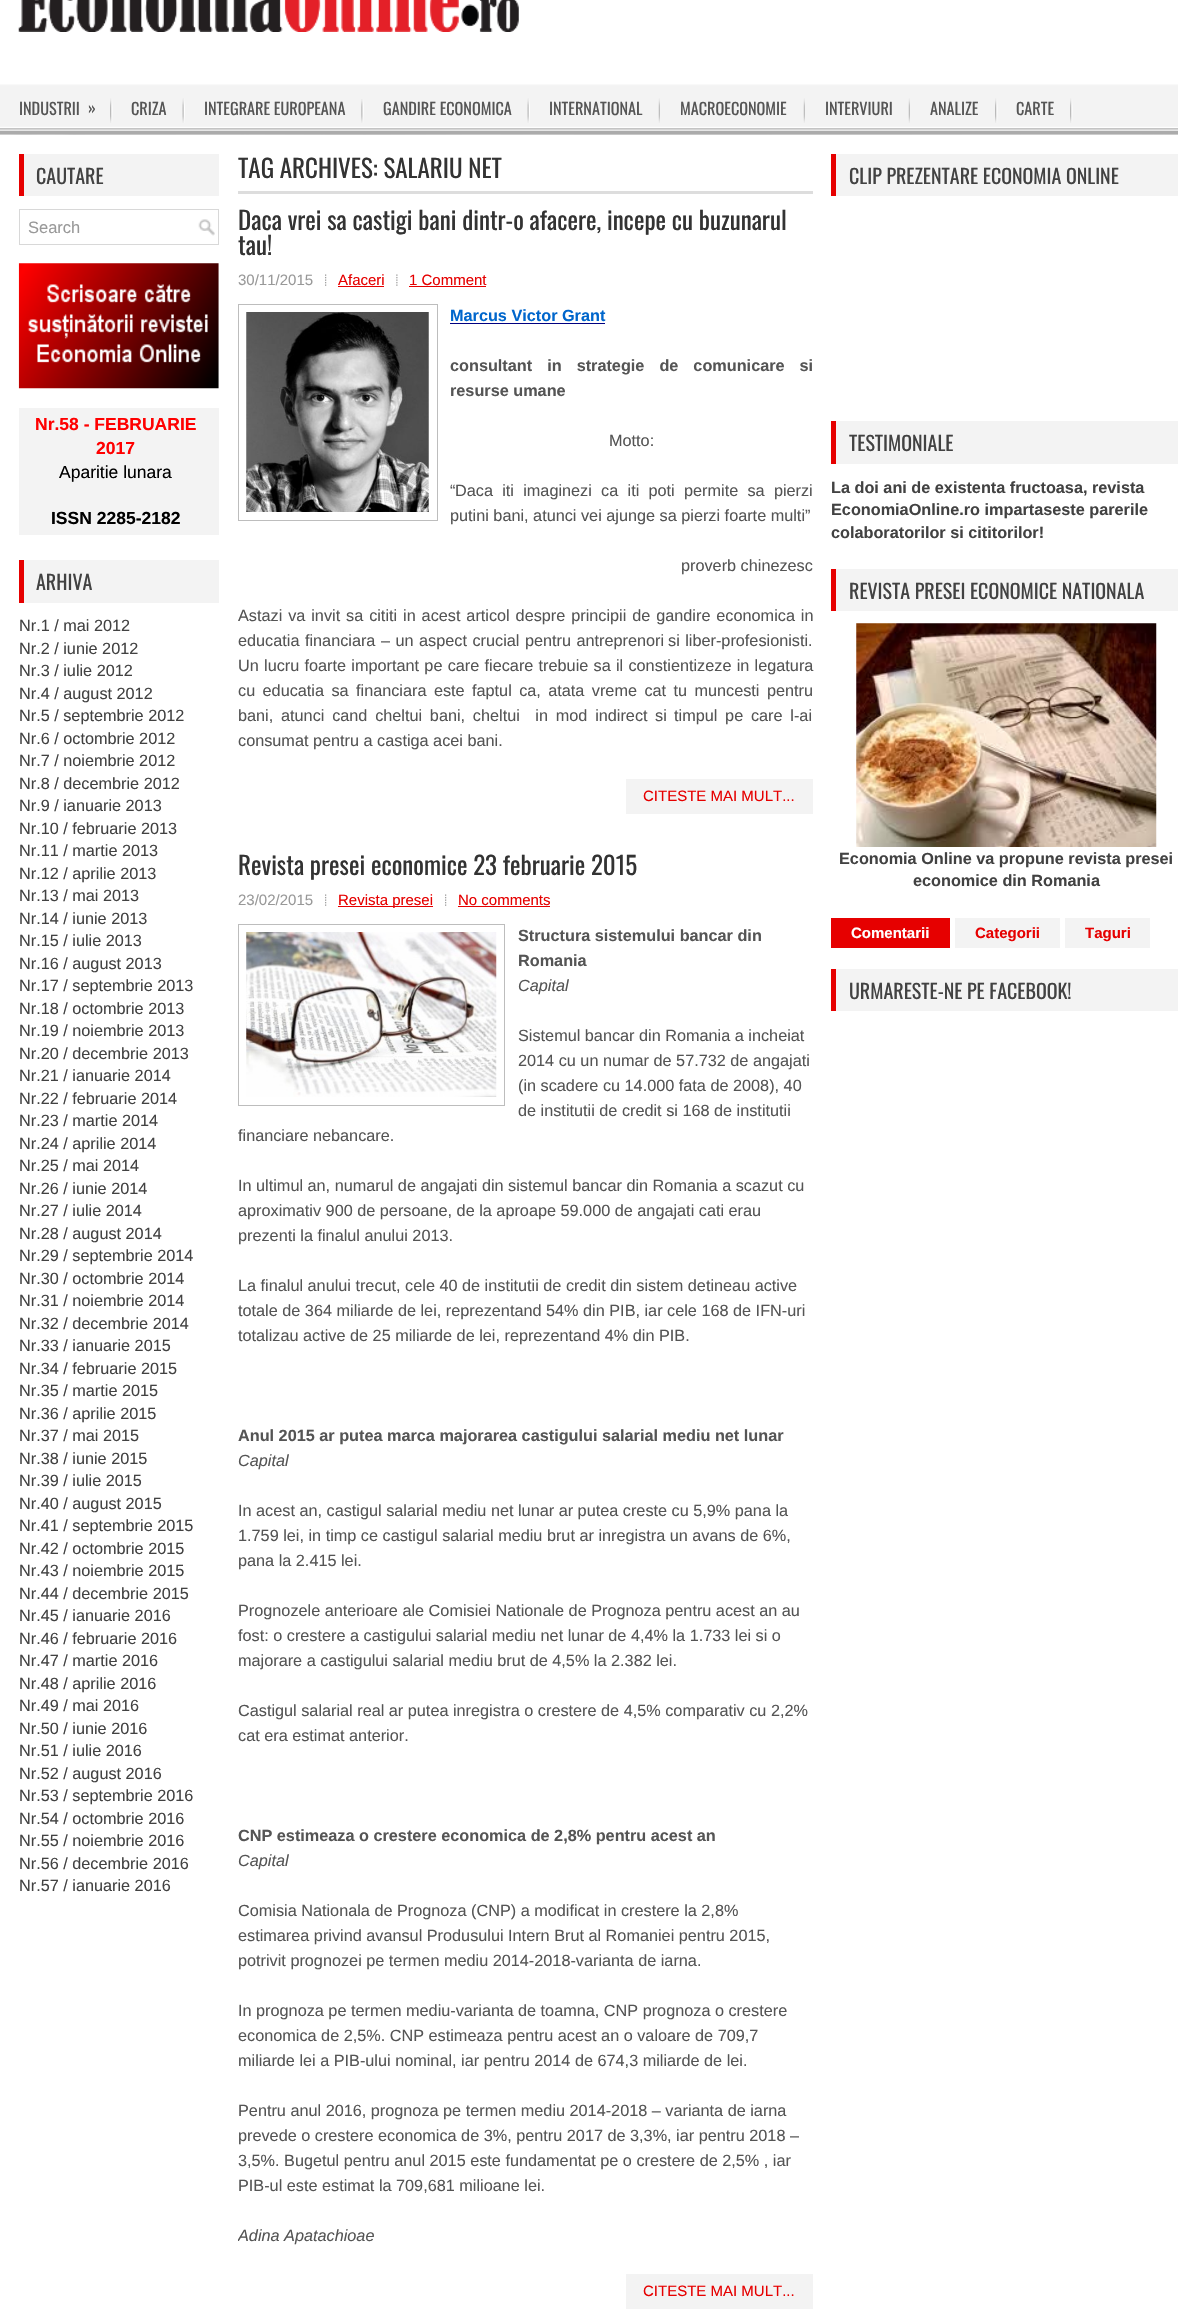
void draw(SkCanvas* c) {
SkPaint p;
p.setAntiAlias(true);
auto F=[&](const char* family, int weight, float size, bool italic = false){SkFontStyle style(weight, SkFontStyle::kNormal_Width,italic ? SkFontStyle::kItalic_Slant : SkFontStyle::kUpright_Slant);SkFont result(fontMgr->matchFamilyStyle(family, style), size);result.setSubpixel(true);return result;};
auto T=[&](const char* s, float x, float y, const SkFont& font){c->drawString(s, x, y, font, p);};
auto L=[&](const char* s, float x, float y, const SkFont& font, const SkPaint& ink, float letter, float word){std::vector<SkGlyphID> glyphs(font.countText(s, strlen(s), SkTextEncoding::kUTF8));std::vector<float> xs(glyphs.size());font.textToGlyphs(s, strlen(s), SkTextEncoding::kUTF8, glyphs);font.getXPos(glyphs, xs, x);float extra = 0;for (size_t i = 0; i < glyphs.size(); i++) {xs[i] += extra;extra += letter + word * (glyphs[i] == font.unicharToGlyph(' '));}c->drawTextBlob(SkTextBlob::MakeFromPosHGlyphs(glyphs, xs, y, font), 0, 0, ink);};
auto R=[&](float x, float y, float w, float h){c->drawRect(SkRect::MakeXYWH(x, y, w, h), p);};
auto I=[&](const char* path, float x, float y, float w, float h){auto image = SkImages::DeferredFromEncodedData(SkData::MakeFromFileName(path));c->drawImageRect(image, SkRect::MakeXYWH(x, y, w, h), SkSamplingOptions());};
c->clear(0xffffffff);
I("1.png",0,134,1178,1);
I("2.png",18,0,501,32);
I("3.png",0,84,1178,51);
I("4.png",110,98,3,25);
auto f1 = F("Oswald",400,16.25);
p.setColor(0xff555555);
T("INDUSTRII",19,115,f1);
T("»",88,114,f1);
I("5.png",182,98,3,25);
T("CRIZA",131,115,f1);
I("6.png",361,99,3,24);
T("INTEGRARE EUROPEANA",204,115,f1);
I("5.png",527,98,3,25);
T("GANDIRE ECONOMICA",383,115,f1);
I("7.png",658,98,2,25);
T("INTERNATIONAL",549,115,f1);
I("7.png",803,98,2,25);
T("MACROECONOMIE",680,115,f1);
I("7.png",908,98,2,25);
T("INTERVIURI",825,115,f1);
I("4.png",995,98,3,25);
T("ANALIZE",930,115,f1);
I("4.png",1070,98,3,25);
T("CARTE",1016,115,f1);
p.setColor(0xfff3f3f3);
R(24,154,195,42);
p.setColor(0xffe60000);
R(19,154,5,42);
auto f2 = F("Oswald",400,20);
p.setColor(0xff424242);
T("CAUTARE",36,184,f2);
I("8.png",198,219,17,17);
p.setStroke(true);
p.setStrokeWidth(1);
p.setColor(0xffd8d8d8);
c->drawRect(SkRect::MakeXYWH(19.5,209.5,199,35),p);
auto f3 = F("Liberation Sans",400,16.5);
p.setStroke(false);
p.setColor(0xff999999);
T("Search",28,233,f3);
I("9.png",18,263,201,126);
p.setColor(0xfff3f3f3);
R(19,408,200,127);
auto f4 = F("Liberation Sans",700,17.5);
p.setColor(0xffff0000);
T("Nr.58 - FEBRUARIE",35,430,f4);
T("2017",96,454,f4);
auto f5 = F("Liberation Sans",400,17.5);
p.setColor(0xff000000);
T("Aparitie lunara",59,478,f5);
T("ISSN 2285-2182",51,524,f4);
p.setColor(0xfff3f3f3);
R(24,560,195,43);
p.setColor(0xffe60000);
R(19,560,5,43);
p.setColor(0xff424242);
T("ARHIVA",36,590,f2);
auto f6 = F("Liberation Sans",400,16.25);
T("Nr.1 / mai 2012",19,631,f6);
T("Nr.2 / iunie 2012",19,654,f6);
T("Nr.3 / iulie 2012",19,676,f6);
T("Nr.4 / august 2012",19,699,f6);
T("Nr.5 / septembrie 2012",19,721,f6);
T("Nr.6 / octombrie 2012",19,744,f6);
T("Nr.7 / noiembrie 2012",19,766,f6);
T("Nr.8 / decembrie 2012",19,789,f6);
T("Nr.9 / ianuarie 2013",19,811,f6);
T("Nr.10 / februarie 2013",19,834,f6);
T("Nr.11 / martie 2013",19,856,f6);
T("Nr.12 / aprilie 2013",19,879,f6);
T("Nr.13 / mai 2013",19,901,f6);
T("Nr.14 / iunie 2013",19,924,f6);
T("Nr.15 / iulie 2013",19,946,f6);
T("Nr.16 / august 2013",19,969,f6);
T("Nr.17 / septembrie 2013",19,991,f6);
T("Nr.18 / octombrie 2013",19,1014,f6);
T("Nr.19 / noiembrie 2013",19,1036,f6);
T("Nr.20 / decembrie 2013",19,1059,f6);
T("Nr.21 / ianuarie 2014",19,1081,f6);
T("Nr.22 / februarie 2014",19,1104,f6);
T("Nr.23 / martie 2014",19,1126,f6);
T("Nr.24 / aprilie 2014",19,1149,f6);
T("Nr.25 / mai 2014",19,1171,f6);
T("Nr.26 / iunie 2014",19,1194,f6);
T("Nr.27 / iulie 2014",19,1216,f6);
T("Nr.28 / august 2014",19,1239,f6);
T("Nr.29 / septembrie 2014",19,1261,f6);
T("Nr.30 / octombrie 2014",19,1284,f6);
T("Nr.31 / noiembrie 2014",19,1306,f6);
T("Nr.32 / decembrie 2014",19,1329,f6);
T("Nr.33 / ianuarie 2015",19,1351,f6);
T("Nr.34 / februarie 2015",19,1374,f6);
T("Nr.35 / martie 2015",19,1396,f6);
T("Nr.36 / aprilie 2015",19,1419,f6);
T("Nr.37 / mai 2015",19,1441,f6);
T("Nr.38 / iunie 2015",19,1464,f6);
T("Nr.39 / iulie 2015",19,1486,f6);
T("Nr.40 / august 2015",19,1509,f6);
T("Nr.41 / septembrie 2015",19,1531,f6);
T("Nr.42 / octombrie 2015",19,1554,f6);
T("Nr.43 / noiembrie 2015",19,1576,f6);
T("Nr.44 / decembrie 2015",19,1599,f6);
T("Nr.45 / ianuarie 2016",19,1621,f6);
T("Nr.46 / februarie 2016",19,1644,f6);
T("Nr.47 / martie 2016",19,1666,f6);
T("Nr.48 / aprilie 2016",19,1689,f6);
T("Nr.49 / mai 2016",19,1711,f6);
T("Nr.50 / iunie 2016",19,1734,f6);
T("Nr.51 / iulie 2016",19,1756,f6);
T("Nr.52 / august 2016",19,1779,f6);
T("Nr.53 / septembrie 2016",19,1801,f6);
T("Nr.54 / octombrie 2016",19,1824,f6);
T("Nr.55 / noiembrie 2016",19,1846,f6);
T("Nr.56 / decembrie 2016",19,1869,f6);
T("Nr.57 / ianuarie 2016",19,1891,f6);
p.setColor(0xffdddddd);
R(238,191,575,3);
auto f7 = F("Oswald",400,25);
p.setColor(0xff333333);
T("TAG ARCHIVES: SALARIU NET",238,178,f7);
T("Daca vrei sa castigi bani dintr-o afacere, incepe cu buzunarul",238,230,f7);
T("tau!",238,255,f7);
auto f8 = F("Liberation Sans",400,15);
p.setColor(0xff999999);
T("30/11/2015",238,285,f8);
I("10.png",325,274,2,12);
p.setColor(0xffe60000);
T("Afaceri",338,285,f8);
R(338,286,46,1);
I("11.png",396,274,2,12);
T("1 Comment",409,285,f8);
R(409,286,77,1);
p.setStroke(true);
p.setColor(0xffbdbdbd);
c->drawRect(SkRect::MakeXYWH(238.5,304.5,199,216),p);
I("12.png",246,312,183,200);
auto f9 = F("Liberation Sans",700,16.25);
p.setStroke(false);
p.setColor(0xff0066cc);
T("Marcus Victor Grant",450,321,f9);
p.setColor(0xff000080);
R(450,323,155,1);
p.setColor(0xff555555);
L("consultant in strategie de comunicare si",450,371,f9,p,0,10.5);
T("resurse umane",450,396,f9);
T("Motto:",609,446,f6);
T("“",450,496,f6);
L("Daca iti imaginezi ca iti poti permite sa pierzi",455,496,f6,p,0,4.75);
T("putini bani, atunci vei ajunge sa pierzi foarte multi”",450,521,f6);
T("proverb chinezesc",681,571,f6);
L("Astazi va invit sa cititi in acest articol despre principii de gandire economica in",238,621,f6,p,0,1.4);
L("educatia financiara – un aspect crucial pentru antreprenori",238,646,f6,p,0,1);
L("si liber-profesionisti.",668,646,f6,p,0,1);
L("Un lucru foarte important pe care fiecare trebuie sa il constientizeze in legatura",238,671,f6,p,0,.75);
L("cu educatia sa financiara este faptul ca, atata vreme cat tu muncesti pentru",238,696,f6,p,0,2.9);
L("bani, atunci cand cheltui bani, cheltui  in mod indirect",238,721,f6,p,0,3.25);
T("si",655,721,f6);
L("timpul pe care l-ai",674,721,f6,p,0,3.25);
T("consumat pentru a castiga acei bani.",238,746,f6);
p.setColor(0xfff3f3f3);
R(626,779,187,35);
p.setColor(0xffe60000);
T("CITESTE MAI MULT...",643,801,f8);
p.setColor(0xff333333);
T("Revista presei economice 23 februarie 2015",238,875,f7);
p.setColor(0xff999999);
T("23/02/2015",238,905,f8);
I("10.png",325,894,2,12);
p.setColor(0xffe60000);
R(338,906,95,1);
T("Revista presei",338,905,f8);
I("10.png",445,894,2,12);
T("No comments",458,905,f8);
R(458,906,92,1);
p.setStroke(true);
p.setColor(0xffbdbdbd);
c->drawRect(SkRect::MakeXYWH(238.5,924.5,266,181),p);
I("13.png",246,932,251,165);
p.setStroke(false);
p.setColor(0xff555555);
T("Structura sistemului bancar din",518,941,f9);
T("Romania",518,966,f9);
auto f10 = F("Liberation Sans",400,16.25,true);
T("Capital",518,991,f10);
T("Sistemul bancar din Romania a incheiat",518,1041,f6);
T("2014 cu un numar de 57.732 de angajati",518,1066,f6);
T("(in scadere cu 14.000 fata de 2008), 40",518,1091,f6);
T("de institutii de credit si 168 de institutii",518,1116,f6);
T("financiare nebancare.",238,1141,f6);
T("In ultimul an, numarul de angajati din sistemul bancar din Romania a scazut cu",238,1191,f6);
T("aproximativ 900 de persoane, de la aproape 59.000 de angajati cati erau",238,1216,f6);
T("prezenti la finalul anului 2013.",238,1241,f6);
T("La finalul anului trecut, cele 40 de institutii de credit din sistem detineau active",238,1291,f6);
T("totale de 364 miliarde de lei, reprezentand 54% din PIB, iar cele 168 de IFN-uri",238,1316,f6);
T("totalizau active de 25 miliarde de lei, reprezentand 4% din PIB.",238,1341,f6);
T("Anul 2015 ar putea marca majorarea castigului salarial mediu net lunar",238,1441,f9);
T("Capital",238,1466,f10);
T("In acest an, castigul salarial mediu net lunar ar putea creste cu 5,9% pana la",238,1516,f6);
T("1.759 lei, in timp ce castigul salarial mediu brut ar inregistra un avans de 6%,",238,1541,f6);
T("pana la 2.415 lei.",238,1566,f6);
T("Prognozele anterioare ale Comisiei Nationale de Prognoza pentru acest an au",238,1616,f6);
T("fost: o crestere a castigului salarial mediu net lunar de 4,4% la 1.733 lei si o",238,1641,f6);
T("majorare a castigului salarial mediu brut de 4,5% la 2.382 lei.",238,1666,f6);
T("Castigul salarial real ar putea inregistra o crestere de 4,5% comparativ cu 2,2%",238,1716,f6);
T("cat era estimat anterior.",238,1741,f6);
T("CNP estimeaza o crestere economica de 2,8% pentru acest an",238,1841,f9);
T("Capital",238,1866,f10);
T("Comisia Nationala de Prognoza (CNP) a modificat in crestere la 2,8%",238,1916,f6);
T("estimarea privind avansul Produsului Intern Brut al Romaniei pentru 2015,",238,1941,f6);
T("potrivit prognozei pe termen mediu 2014-2018-varianta de iarna.",238,1966,f6);
T("In prognoza pe termen mediu-varianta de toamna, CNP prognoza o crestere",238,2016,f6);
T("economica de 2,5%. CNP estimeaza pentru acest an o valoare de 709,7",238,2041,f6);
T("miliarde lei a PIB-ului nominal, iar pentru 2014 de 674,3 miliarde de lei.",238,2066,f6);
T("Pentru anul 2016, prognoza pe termen mediu 2014-2018 – varianta de iarna",238,2116,f6);
T("prevede o crestere economica de 3%, pentru 2017 de 3,3%, iar pentru 2018 –",238,2141,f6);
T("3,5%. Bugetul pentru anul 2015 este fundamentat pe o crestere de 2,5% , iar",238,2166,f6);
T("PIB-ul este estimat la 709,681 milioane lei.",238,2191,f6);
c->save();
c->clipRect(SkRect::MakeXYWH(238,154,575,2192));
T("Adina Apatachioae",238,2241,f10);
c->restore();
p.setColor(0xfff3f3f3);
R(626,2274,187,35);
p.setColor(0xffe60000);
T("CITESTE MAI MULT...",643,2296,f8);
p.setColor(0xfff3f3f3);
R(836,154,342,42);
p.setColor(0xffe60000);
R(831,154,5,42);
p.setColor(0xff424242);
T("CLIP PREZENTARE ECONOMIA ONLINE",849,184,f2);
p.setColor(0xfff3f3f3);
R(836,421,342,43);
p.setColor(0xffe60000);
R(831,421,5,43);
p.setColor(0xff424242);
T("TESTIMONIALE",849,451,f2);
T("La doi ani de existenta fructoasa, revista",831,493,f9);
T("EconomiaOnline.ro impartaseste parerile",831,515,f9);
T("colaboratorilor si cititorilor!",831,538,f9);
p.setColor(0xfff3f3f3);
R(836,569,342,42);
p.setColor(0xffe60000);
R(831,569,5,42);
p.setColor(0xff424242);
T("REVISTA PRESEI ECONOMICE NATIONALA",849,599,f2);
I("14.png",856,623,301,224);
T("Economia Online va propune revista presei",839,864,f9);
T("economice din Romania",913,886,f9);
p.setColor(0xffe60000);
R(831,918,119,30);
auto f11 = F("Liberation Sans",700,15);
p.setColor(0xffffffff);
T("Comentarii",851,938,f11);
p.setColor(0xfff3f3f3);
R(955,918,105,30);
p.setColor(0xffe60000);
T("Categorii",975,938,f11);
p.setColor(0xfff3f3f3);
R(1065,918,85,30);
p.setColor(0xffe60000);
T("Taguri",1085,938,f11);
p.setColor(0xfff3f3f3);
R(836,969,342,42);
p.setColor(0xffe60000);
R(831,969,5,42);
p.setColor(0xff424242);
T("URMARESTE-NE PE FACEBOOK!",849,999,f2);
}
